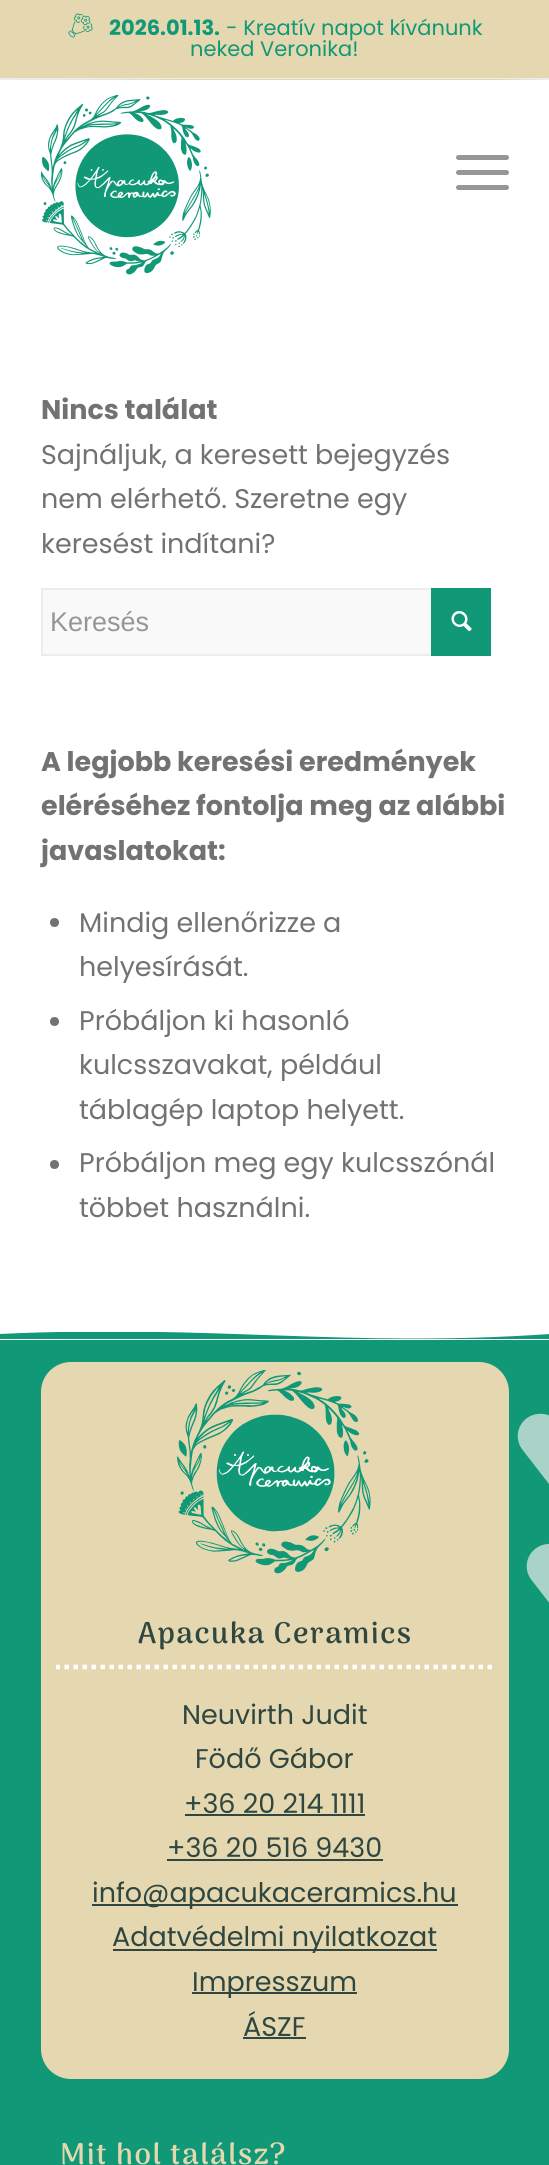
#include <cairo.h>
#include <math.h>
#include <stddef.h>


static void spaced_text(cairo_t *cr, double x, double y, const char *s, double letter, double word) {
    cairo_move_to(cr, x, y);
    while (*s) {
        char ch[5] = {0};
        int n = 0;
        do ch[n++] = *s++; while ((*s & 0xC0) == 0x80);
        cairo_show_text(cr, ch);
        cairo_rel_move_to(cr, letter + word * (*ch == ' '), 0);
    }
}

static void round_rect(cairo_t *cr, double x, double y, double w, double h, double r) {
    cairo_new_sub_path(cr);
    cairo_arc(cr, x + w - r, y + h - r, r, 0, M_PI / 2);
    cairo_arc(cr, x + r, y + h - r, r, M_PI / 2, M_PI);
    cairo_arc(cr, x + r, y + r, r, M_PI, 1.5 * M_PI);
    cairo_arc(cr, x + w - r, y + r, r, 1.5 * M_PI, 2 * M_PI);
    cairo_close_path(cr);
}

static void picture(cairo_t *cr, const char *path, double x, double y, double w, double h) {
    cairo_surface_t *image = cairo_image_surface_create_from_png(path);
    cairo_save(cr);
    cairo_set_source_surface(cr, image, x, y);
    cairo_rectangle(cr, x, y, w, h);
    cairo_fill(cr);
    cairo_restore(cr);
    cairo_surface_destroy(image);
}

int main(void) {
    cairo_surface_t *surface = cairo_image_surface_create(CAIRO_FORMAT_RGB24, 549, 2165);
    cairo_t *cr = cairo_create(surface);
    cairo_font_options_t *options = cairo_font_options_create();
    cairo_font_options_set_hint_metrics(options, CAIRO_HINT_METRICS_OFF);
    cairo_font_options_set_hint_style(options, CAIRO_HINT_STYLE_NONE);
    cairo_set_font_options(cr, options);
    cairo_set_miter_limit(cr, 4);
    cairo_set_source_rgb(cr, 1, 1, 1);
    cairo_paint(cr);
    cairo_set_source_rgb(cr, 0.898, 0.847, 0.69);
    cairo_rectangle(cr, 0, 0, 549, 78);
    cairo_fill(cr);
    cairo_set_source_rgb(cr, 0.922, 0.922, 0.922);
    cairo_rectangle(cr, 0, 78, 549, 2);
    cairo_fill(cr);
    picture(cr, "img1.png", 68, 13, 25, 25);
    cairo_select_font_face(cr, "Poppins", CAIRO_FONT_SLANT_NORMAL, CAIRO_FONT_WEIGHT_BOLD);
    cairo_set_font_size(cr, 21);
    cairo_set_source_rgb(cr, 0.067, 0.596, 0.463);
    cairo_move_to(cr, 109, 35);
    cairo_show_text(cr, "2026.01.13.");
    cairo_select_font_face(cr, "Poppins", CAIRO_FONT_SLANT_NORMAL, CAIRO_FONT_WEIGHT_NORMAL);
    cairo_move_to(cr, 226, 35);
    cairo_show_text(cr, "- Kreatív napot kívánunk");
    cairo_move_to(cr, 190, 56);
    cairo_show_text(cr, "neked Veronika!");
    cairo_save(cr);
    cairo_rectangle(cr, 0, 78, 549, 2);
    cairo_clip(cr);
    cairo_set_source_rgb(cr, 0.898, 0.847, 0.69);
    cairo_new_path(cr);
    cairo_move_to(cr, 1, 79);
    cairo_curve_to(cr, 214, 79, 336, 84, 548, 79);
    cairo_close_path(cr);
    cairo_fill(cr);
    cairo_restore(cr);
    picture(cr, "img2.png", 41, 95, 170, 180);
    cairo_set_source_rgb(cr, 0.588, 0.588, 0.588);
    round_rect(cr, 456, 170, 53, 5, 2.5);
    cairo_fill(cr);
    round_rect(cr, 456, 155, 53, 5, 2.5);
    cairo_fill(cr);
    round_rect(cr, 456, 185, 53, 5, 2.5);
    cairo_fill(cr);
    cairo_select_font_face(cr, "Poppins", CAIRO_FONT_SLANT_NORMAL, CAIRO_FONT_WEIGHT_BOLD);
    cairo_set_font_size(cr, 27);
    cairo_set_source_rgb(cr, 0.447, 0.447, 0.447);
    cairo_move_to(cr, 41, 419);
    cairo_show_text(cr, "Nincs találat");
    cairo_select_font_face(cr, "Poppins", CAIRO_FONT_SLANT_NORMAL, CAIRO_FONT_WEIGHT_NORMAL);
    cairo_move_to(cr, 41, 464);
    cairo_show_text(cr, "Sajnáljuk, a keresett bejegyzés");
    cairo_move_to(cr, 41, 508);
    cairo_show_text(cr, "nem elérhető. Szeretne egy");
    cairo_move_to(cr, 41, 553);
    cairo_show_text(cr, "keresést indítani?");
    cairo_set_source_rgb(cr, 0.973, 0.973, 0.973);
    cairo_rectangle(cr, 43, 590, 388, 64);
    cairo_fill(cr);
    cairo_rectangle(cr, 42, 589, 448, 66);
    cairo_set_source_rgb(cr, 0.922, 0.922, 0.922);
    cairo_stroke(cr);
    cairo_select_font_face(cr, "Liberation Sans", CAIRO_FONT_SLANT_NORMAL, CAIRO_FONT_WEIGHT_NORMAL);
    cairo_set_source_rgb(cr, 0.588, 0.588, 0.588);
    cairo_move_to(cr, 50, 631);
    cairo_show_text(cr, "Keresés");
    cairo_set_source_rgb(cr, 0.067, 0.596, 0.463);
    cairo_rectangle(cr, 431, 588, 60, 68);
    cairo_fill(cr);
    picture(cr, "img3.png", 451, 611, 21, 21);
    cairo_select_font_face(cr, "Poppins", CAIRO_FONT_SLANT_NORMAL, CAIRO_FONT_WEIGHT_BOLD);
    cairo_set_source_rgb(cr, 0.447, 0.447, 0.447);
    cairo_move_to(cr, 41, 771);
    cairo_show_text(cr, "A legjobb keresési eredmények");
    cairo_move_to(cr, 41, 815);
    cairo_show_text(cr, "eléréséhez fontolja meg az alábbi");
    cairo_move_to(cr, 41, 860);
    cairo_show_text(cr, "javaslatokat:");
    cairo_new_path(cr);
    cairo_arc(cr, 54.5, 922.5, 4.5, 0, 2 * M_PI);
    cairo_fill(cr);
    cairo_select_font_face(cr, "Poppins", CAIRO_FONT_SLANT_NORMAL, CAIRO_FONT_WEIGHT_NORMAL);
    cairo_move_to(cr, 79, 932);
    cairo_show_text(cr, "Mindig ellenőrizze a");
    cairo_move_to(cr, 79, 976);
    cairo_show_text(cr, "helyesírását.");
    cairo_new_path(cr);
    cairo_arc(cr, 54.5, 1021.5, 4.5, 0, 2 * M_PI);
    cairo_fill(cr);
    cairo_move_to(cr, 79, 1030);
    cairo_show_text(cr, "Próbáljon ki hasonló");
    cairo_move_to(cr, 79, 1074);
    cairo_show_text(cr, "kulcsszavakat, például");
    cairo_move_to(cr, 79, 1119);
    cairo_show_text(cr, "táblagép laptop helyett.");
    cairo_new_path(cr);
    cairo_arc(cr, 54.5, 1164.5, 4.5, 0, 2 * M_PI);
    cairo_fill(cr);
    cairo_move_to(cr, 79, 1172);
    cairo_show_text(cr, "Próbáljon meg egy kulcsszónál");
    cairo_move_to(cr, 79, 1217);
    cairo_show_text(cr, "többet használni.");
    cairo_set_source_rgb(cr, 0.067, 0.596, 0.463);
    cairo_rectangle(cr, 0, 1340, 549, 825);
    cairo_fill(cr);
    cairo_save(cr);
    cairo_rectangle(cr, 0, 1332, 549, 8);
    cairo_clip(cr);
    cairo_set_source_rgb(cr, 0.067, 0.596, 0.467);
    cairo_new_path(cr);
    cairo_move_to(cr, -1, 1334);
    cairo_line_to(cr, -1, 1339);
    cairo_line_to(cr, 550, 1339);
    cairo_line_to(cr, 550, 1334);
    cairo_curve_to(cr, 347, 1348, 213, 1324, -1, 1334);
    cairo_close_path(cr);
    cairo_fill(cr);
    cairo_restore(cr);
    picture(cr, "img4.png", 517, 1413, 32, 190);
    cairo_set_source_rgb(cr, 0.898, 0.847, 0.69);
    round_rect(cr, 41, 1362, 468, 717, 30);
    cairo_fill(cr);
    picture(cr, "img5.png", 177, 1370, 194, 204);
    cairo_save(cr);
    cairo_rectangle(cr, 56, 1595, 438, 477);
    cairo_clip(cr);
    cairo_new_path(cr);
    cairo_move_to(cr, 55.5, 1667);
    cairo_line_to(cr, 493.5, 1667);
    cairo_set_source_rgb(cr, 1, 1, 1);
    cairo_set_line_width(cr, 4.5);
    cairo_set_dash(cr, (double[]){4.5, 4.5}, 2, 0);
    cairo_stroke(cr);
    cairo_restore(cr);
    cairo_select_font_face(cr, "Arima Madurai", CAIRO_FONT_SLANT_NORMAL, CAIRO_FONT_WEIGHT_BOLD);
    cairo_set_font_size(cr, 29.75);
    cairo_set_source_rgb(cr, 0.184, 0.278, 0.251);
    spaced_text(cr, 138, 1643, "Apacuka Ceramics", 1.5, 0);
    cairo_select_font_face(cr, "Poppins", CAIRO_FONT_SLANT_NORMAL, CAIRO_FONT_WEIGHT_NORMAL);
    cairo_set_font_size(cr, 27);
    cairo_move_to(cr, 182, 1724);
    cairo_show_text(cr, "Neuvirth Judit");
    cairo_move_to(cr, 195, 1768);
    cairo_show_text(cr, "Födő Gábor");
    cairo_move_to(cr, 184, 1813);
    cairo_show_text(cr, "+36 20 214 1111");
    cairo_rectangle(cr, 185, 1814, 180, 2);
    cairo_fill(cr);
    cairo_move_to(cr, 167, 1857);
    cairo_show_text(cr, "+36 20 516 9430");
    cairo_rectangle(cr, 167, 1859, 216, 2);
    cairo_fill(cr);
    cairo_rectangle(cr, 92, 1904, 366, 2);
    cairo_fill(cr);
    cairo_move_to(cr, 92, 1902);
    cairo_show_text(cr, "info@apacukaceramics.hu");
    cairo_rectangle(cr, 113, 1949, 324, 2);
    cairo_fill(cr);
    cairo_move_to(cr, 112, 1946);
    cairo_show_text(cr, "Adatvédelmi nyilatkozat");
    cairo_rectangle(cr, 192, 1992, 165, 2);
    cairo_fill(cr);
    cairo_move_to(cr, 192, 1991);
    cairo_show_text(cr, "Impresszum");
    cairo_move_to(cr, 243, 2036);
    cairo_show_text(cr, "ÁSZF");
    cairo_rectangle(cr, 243, 2037, 63, 2);
    cairo_fill(cr);
    cairo_select_font_face(cr, "Arima Madurai", CAIRO_FONT_SLANT_NORMAL, CAIRO_FONT_WEIGHT_BOLD);
    cairo_set_font_size(cr, 29.75);
    cairo_set_source_rgb(cr, 0.898, 0.847, 0.69);
    spaced_text(cr, 60, 2164, "Mit hol találsz?", 1.5, 0);
    cairo_surface_write_to_png(surface, "page.png");
    cairo_font_options_destroy(options);
    cairo_destroy(cr);
    cairo_surface_destroy(surface);
    return 0;
}
